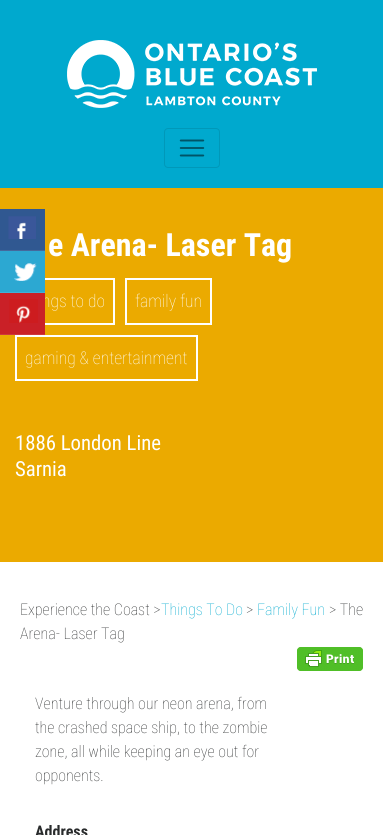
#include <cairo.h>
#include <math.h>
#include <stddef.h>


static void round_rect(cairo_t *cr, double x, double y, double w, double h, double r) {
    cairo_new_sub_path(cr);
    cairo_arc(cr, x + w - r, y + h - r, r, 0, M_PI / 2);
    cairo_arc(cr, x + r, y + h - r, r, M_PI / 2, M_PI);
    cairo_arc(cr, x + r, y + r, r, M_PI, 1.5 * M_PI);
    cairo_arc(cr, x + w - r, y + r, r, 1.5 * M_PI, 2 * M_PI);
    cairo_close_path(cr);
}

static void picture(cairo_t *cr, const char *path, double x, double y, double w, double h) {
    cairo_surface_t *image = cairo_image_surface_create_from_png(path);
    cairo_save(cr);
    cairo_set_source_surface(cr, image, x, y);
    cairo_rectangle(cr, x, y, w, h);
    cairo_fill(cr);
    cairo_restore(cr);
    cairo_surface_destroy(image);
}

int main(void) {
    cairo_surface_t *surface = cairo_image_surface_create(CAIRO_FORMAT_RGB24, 383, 835);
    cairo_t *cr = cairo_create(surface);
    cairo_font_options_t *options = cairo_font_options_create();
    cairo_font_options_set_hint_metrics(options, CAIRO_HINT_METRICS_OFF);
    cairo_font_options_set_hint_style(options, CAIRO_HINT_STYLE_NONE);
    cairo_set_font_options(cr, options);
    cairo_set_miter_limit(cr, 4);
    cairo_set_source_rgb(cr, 0, 0.663, 0.808);
    cairo_paint(cr);
    picture(cr, "img1.png", 67, 40, 250, 68);
    round_rect(cr, 164.5, 128.5, 55, 39, 3.5);
    cairo_set_source_rgb(cr, 0, 0.596, 0.725);
    cairo_set_line_width(cr, 1);
    cairo_stroke(cr);
    picture(cr, "img2.png", 179, 139, 26, 18);
    cairo_set_source_rgb(cr, 0.918, 0.667, 0);
    cairo_rectangle(cr, 0, 188, 383, 374);
    cairo_fill(cr);
    cairo_set_source_rgb(cr, 0.188, 0.345, 0.569);
    cairo_rectangle(cr, 0, 209, 45, 41);
    cairo_fill(cr);
    cairo_set_source_rgb(cr, 0.271, 0.412, 0.612);
    cairo_rectangle(cr, 0, 250, 45, 1);
    cairo_fill(cr);
    picture(cr, "img3.png", 8, 216, 28, 23);
    cairo_rectangle(cr, 16, 279, 98, 45);
    cairo_set_source_rgb(cr, 1, 1, 1);
    cairo_set_line_width(cr, 2);
    cairo_stroke(cr);
    cairo_set_source_rgb(cr, 0.173, 0.659, 0.824);
    cairo_rectangle(cr, 0, 251, 45, 41);
    cairo_fill(cr);
    cairo_set_source_rgb(cr, 0.255, 0.694, 0.843);
    cairo_rectangle(cr, 0, 292, 45, 1);
    cairo_fill(cr);
    picture(cr, "img4.png", 14, 263, 23, 18);
    cairo_select_font_face(cr, "Roboto Condensed Thin", CAIRO_FONT_SLANT_NORMAL, CAIRO_FONT_WEIGHT_NORMAL);
    cairo_set_font_size(cr, 17.5);
    cairo_set_source_rgb(cr, 1, 1, 1);
    cairo_move_to(cr, 42, 307);
    cairo_show_text(cr, "ngs to do");
    cairo_set_source_rgb(cr, 0.792, 0.125, 0.153);
    cairo_rectangle(cr, 0, 293, 45, 41);
    cairo_fill(cr);
    cairo_set_source_rgb(cr, 0.812, 0.212, 0.239);
    cairo_rectangle(cr, 0, 334, 45, 1);
    cairo_fill(cr);
    picture(cr, "img5.png", 9, 299, 29, 24);
    cairo_select_font_face(cr, "Roboto Condensed", CAIRO_FONT_SLANT_NORMAL, CAIRO_FONT_WEIGHT_BOLD);
    cairo_set_font_size(cr, 32);
    cairo_set_source_rgb(cr, 1, 1, 1);
    cairo_move_to(cr, 48, 256);
    cairo_show_text(cr, "e Arena- Laser Tag");
    cairo_rectangle(cr, 126, 279, 85, 45);
    cairo_stroke(cr);
    cairo_select_font_face(cr, "Roboto Condensed Thin", CAIRO_FONT_SLANT_NORMAL, CAIRO_FONT_WEIGHT_NORMAL);
    cairo_set_font_size(cr, 17.5);
    cairo_move_to(cr, 135, 307);
    cairo_show_text(cr, "family fun");
    cairo_rectangle(cr, 16, 336, 181, 44);
    cairo_stroke(cr);
    cairo_move_to(cr, 25, 364);
    cairo_show_text(cr, "gaming & entertainment");
    cairo_select_font_face(cr, "Roboto Condensed", CAIRO_FONT_SLANT_NORMAL, CAIRO_FONT_WEIGHT_NORMAL);
    cairo_set_font_size(cr, 20.75);
    cairo_move_to(cr, 15, 450);
    cairo_show_text(cr, "1886 London Line");
    cairo_move_to(cr, 15, 476);
    cairo_show_text(cr, "Sarnia");
    cairo_rectangle(cr, 0, 562, 383, 273);
    cairo_fill(cr);
    cairo_select_font_face(cr, "Roboto Condensed Thin", CAIRO_FONT_SLANT_NORMAL, CAIRO_FONT_WEIGHT_NORMAL);
    cairo_set_font_size(cr, 16);
    cairo_set_source_rgb(cr, 0.161, 0.169, 0.173);
    cairo_move_to(cr, 20, 615);
    cairo_show_text(cr, "Experience the Coast >");
    cairo_set_source_rgb(cr, 0, 0.663, 0.808);
    cairo_move_to(cr, 161, 615);
    cairo_show_text(cr, "Things To Do");
    cairo_set_source_rgb(cr, 0.161, 0.169, 0.173);
    cairo_move_to(cr, 246, 615);
    cairo_show_text(cr, ">");
    cairo_set_source_rgb(cr, 0, 0.663, 0.808);
    cairo_move_to(cr, 257, 615);
    cairo_show_text(cr, "Family Fun");
    cairo_set_source_rgb(cr, 0.161, 0.169, 0.173);
    cairo_move_to(cr, 329, 615);
    cairo_show_text(cr, "> The");
    cairo_move_to(cr, 20, 639);
    cairo_show_text(cr, "Arena- Laser Tag");
    picture(cr, "img6.png", 297, 647, 66, 24);
    cairo_move_to(cr, 35, 709);
    cairo_show_text(cr, "Venture through our neon arena, from");
    cairo_move_to(cr, 35, 733);
    cairo_show_text(cr, "the crashed space ship, to the zombie");
    cairo_move_to(cr, 35, 757);
    cairo_show_text(cr, "zone, all while keeping an eye out for");
    cairo_move_to(cr, 35, 781);
    cairo_show_text(cr, "opponents.");
    cairo_select_font_face(cr, "Roboto Condensed", CAIRO_FONT_SLANT_NORMAL, CAIRO_FONT_WEIGHT_BOLD);
    cairo_move_to(cr, 35, 837);
    cairo_show_text(cr, "Address");
    cairo_surface_write_to_png(surface, "page.png");
    cairo_font_options_destroy(options);
    cairo_destroy(cr);
    cairo_surface_destroy(surface);
    return 0;
}
